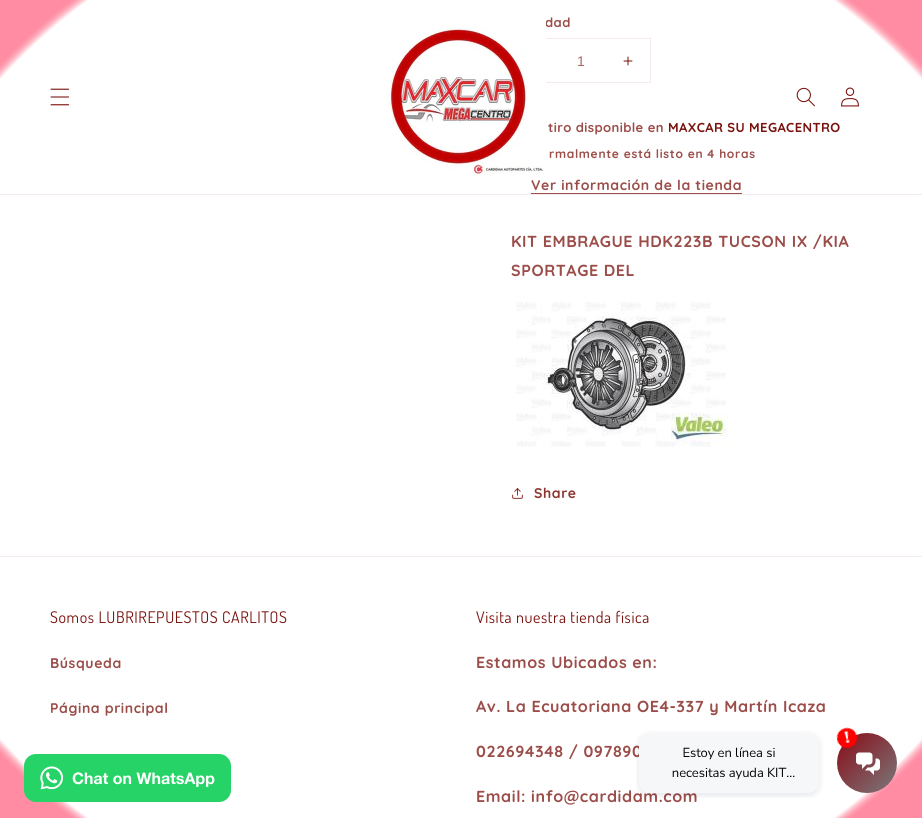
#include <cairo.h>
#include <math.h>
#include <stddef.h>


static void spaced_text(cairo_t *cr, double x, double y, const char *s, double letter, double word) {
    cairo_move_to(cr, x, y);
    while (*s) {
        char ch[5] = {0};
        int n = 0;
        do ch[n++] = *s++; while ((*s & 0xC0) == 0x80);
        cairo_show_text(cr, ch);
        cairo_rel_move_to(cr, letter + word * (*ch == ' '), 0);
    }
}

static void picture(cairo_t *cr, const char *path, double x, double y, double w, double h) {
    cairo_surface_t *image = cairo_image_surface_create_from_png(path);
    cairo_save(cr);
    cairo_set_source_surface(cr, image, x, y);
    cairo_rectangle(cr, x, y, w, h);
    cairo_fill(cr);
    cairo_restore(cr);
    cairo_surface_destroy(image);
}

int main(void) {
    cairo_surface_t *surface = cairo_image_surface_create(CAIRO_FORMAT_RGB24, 922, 818);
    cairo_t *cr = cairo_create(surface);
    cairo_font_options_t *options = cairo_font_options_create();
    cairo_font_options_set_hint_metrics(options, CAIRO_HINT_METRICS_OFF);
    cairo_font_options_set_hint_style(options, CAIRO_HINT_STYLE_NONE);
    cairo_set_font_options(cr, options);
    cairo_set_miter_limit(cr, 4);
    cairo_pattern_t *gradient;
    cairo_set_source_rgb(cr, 1, 1, 1);
    cairo_paint(cr);
    gradient = cairo_pattern_create_radial(0, 0, 0, 0, 0, 1);
    cairo_pattern_set_matrix(gradient, &(cairo_matrix_t){1.0 / 652, 0, 0, 1.0 / 578, -1.0 * 461 / 652, -1.0 * 409 / 578});
    cairo_pattern_add_color_stop_rgba(gradient, 0.36, 1, 1, 1, 1);
    cairo_pattern_add_color_stop_rgba(gradient, 0.91, 1, 1, 1, 1);
    cairo_pattern_add_color_stop_rgba(gradient, 0.93, 1, 0.549, 0.635, 1);
    cairo_set_source(cr, gradient);
    cairo_pattern_destroy(gradient);
    cairo_rectangle(cr, 0, 0, 922, 818);
    cairo_fill(cr);
    cairo_rectangle(cr, 511.5, 38.5, 139, 44);
    cairo_set_source_rgb(cr, 0.957, 0.925, 0.925);
    cairo_set_line_width(cr, 1);
    cairo_stroke(cr);
    picture(cr, "img5.png", 623, 56, 10, 10);
    gradient = cairo_pattern_create_radial(0, 0, 0, 0, 0, 1);
    cairo_pattern_set_matrix(gradient, &(cairo_matrix_t){1.0 / 652, 0, 0, 1.0 / 578, -1.0 * 461 / 652, -1.0 * 409 / 578});
    cairo_pattern_add_color_stop_rgba(gradient, 0.36, 0.941, 0.91, 0.91, 0);
    cairo_pattern_add_color_stop_rgba(gradient, 0.91, 1, 0.549, 0.635, 0);
    cairo_pattern_add_color_stop_rgba(gradient, 0.93, 1, 0.549, 0.635, 1);
    cairo_set_source(cr, gradient);
    cairo_pattern_destroy(gradient);
    cairo_rectangle(cr, 0, 0, 922, 79);
    cairo_fill(cr);
    cairo_set_source_rgb(cr, 0.957, 0.925, 0.925);
    cairo_rectangle(cr, 0, 194, 922, 1);
    cairo_fill(cr);
    picture(cr, "img1.png", 50, 88, 20, 18);
    cairo_select_font_face(cr, "Quicksand", CAIRO_FONT_SLANT_NORMAL, CAIRO_FONT_WEIGHT_BOLD);
    cairo_set_font_size(cr, 13);
    cairo_set_source_rgb(cr, 0.608, 0.302, 0.286);
    spaced_text(cr, 545, 27, "dad", 0.4, 0);
    picture(cr, "img2.png", 386, 18, 160, 159);
    picture(cr, "img3.png", 796, 87, 19, 20);
    picture(cr, "img4.png", 841, 87, 18, 20);
    cairo_select_font_face(cr, "Liberation Sans", CAIRO_FONT_SLANT_NORMAL, CAIRO_FONT_WEIGHT_NORMAL);
    cairo_set_font_size(cr, 14);
    cairo_set_source_rgb(cr, 0.667, 0.408, 0.392);
    cairo_move_to(cr, 577, 66);
    cairo_show_text(cr, "1");
    cairo_select_font_face(cr, "Quicksand", CAIRO_FONT_SLANT_NORMAL, CAIRO_FONT_WEIGHT_BOLD);
    cairo_set_font_size(cr, 13);
    cairo_set_source_rgb(cr, 0.608, 0.302, 0.286);
    spaced_text(cr, 548, 132, "tiro disponible en", 0.4, 0);
    cairo_set_source_rgb(cr, 0.475, 0.067, 0.047);
    spaced_text(cr, 668, 132, "MAXCAR SU MEGACENTRO", 0.4, 0);
    cairo_set_font_size(cr, 12);
    cairo_set_source_rgb(cr, 0.608, 0.302, 0.286);
    spaced_text(cr, 549, 158, "rmalmente está listo en 4 horas", 0.7, 0);
    cairo_set_font_size(cr, 14);
    spaced_text(cr, 531, 190, "Ver información de la tienda", 0.6, 0);
    cairo_rectangle(cr, 531, 193, 211, 1);
    cairo_fill(cr);
    cairo_set_font_size(cr, 16);
    spaced_text(cr, 511, 247, "KIT EMBRAGUE HDK223B TUCSON IX /KIA", 0.6, 0);
    spaced_text(cr, 511, 276, "SPORTAGE DEL", 0.6, 0);
    picture(cr, "img6.png", 516, 301, 214, 146);
    picture(cr, "img7.png", 512, 488, 11, 11);
    cairo_set_font_size(cr, 14);
    cairo_set_source_rgb(cr, 0.553, 0.208, 0.188);
    spaced_text(cr, 534, 498, "Share", 0.6, 0);
    gradient = cairo_pattern_create_radial(0, 0, 0, 0, 0, 1);
    cairo_pattern_set_matrix(gradient, &(cairo_matrix_t){1.0 / 652, 0, 0, 1.0 / 578, -1.0 * 461 / 652, -1.0 * 409 / 578});
    cairo_pattern_add_color_stop_rgba(gradient, 0.36, 0.941, 0.91, 0.91, 0);
    cairo_pattern_add_color_stop_rgba(gradient, 0.91, 1, 0.549, 0.635, 0);
    cairo_pattern_add_color_stop_rgba(gradient, 0.93, 1, 0.549, 0.635, 1);
    cairo_set_source(cr, gradient);
    cairo_pattern_destroy(gradient);
    cairo_rectangle(cr, 0, 739, 922, 79);
    cairo_fill(cr);
    cairo_set_source_rgb(cr, 0.957, 0.925, 0.925);
    cairo_rectangle(cr, 0, 556, 922, 1);
    cairo_fill(cr);
    cairo_select_font_face(cr, "Dosis", CAIRO_FONT_SLANT_NORMAL, CAIRO_FONT_WEIGHT_NORMAL);
    cairo_set_font_size(cr, 16);
    cairo_set_source_rgb(cr, 0.475, 0.067, 0.047);
    spaced_text(cr, 50, 623, "Somos LUBRIREPUESTOS CARLITOS", 0.6, 0);
    cairo_select_font_face(cr, "Quicksand", CAIRO_FONT_SLANT_NORMAL, CAIRO_FONT_WEIGHT_BOLD);
    cairo_set_font_size(cr, 14);
    cairo_set_source_rgb(cr, 0.608, 0.302, 0.286);
    spaced_text(cr, 50, 668, "Búsqueda", 0.6, 0);
    spaced_text(cr, 50, 713, "Página principal", 0.6, 0);
    cairo_select_font_face(cr, "Dosis", CAIRO_FONT_SLANT_NORMAL, CAIRO_FONT_WEIGHT_NORMAL);
    cairo_set_font_size(cr, 16);
    cairo_set_source_rgb(cr, 0.475, 0.067, 0.047);
    spaced_text(cr, 476, 623, "Visita nuestra tienda física", 0.6, 0);
    cairo_select_font_face(cr, "Quicksand", CAIRO_FONT_SLANT_NORMAL, CAIRO_FONT_WEIGHT_BOLD);
    cairo_set_source_rgb(cr, 0.608, 0.302, 0.286);
    spaced_text(cr, 476, 668, "Estamos Ubicados en:", 0.6, 0);
    spaced_text(cr, 476, 712, "Av. La Ecuatoriana OE4-337 y Martín Icaza", 0.6, 0);
    spaced_text(cr, 476, 757, "022694348 / 097890", 0.6, 0);
    spaced_text(cr, 476, 802, "Email: info@cardidam.com", 0.6, 0);
    picture(cr, "img8.png", 24, 754, 207, 48);
    picture(cr, "img9.png", 636, 727, 261, 71);
    cairo_surface_write_to_png(surface, "page.png");
    cairo_font_options_destroy(options);
    cairo_destroy(cr);
    cairo_surface_destroy(surface);
    return 0;
}
